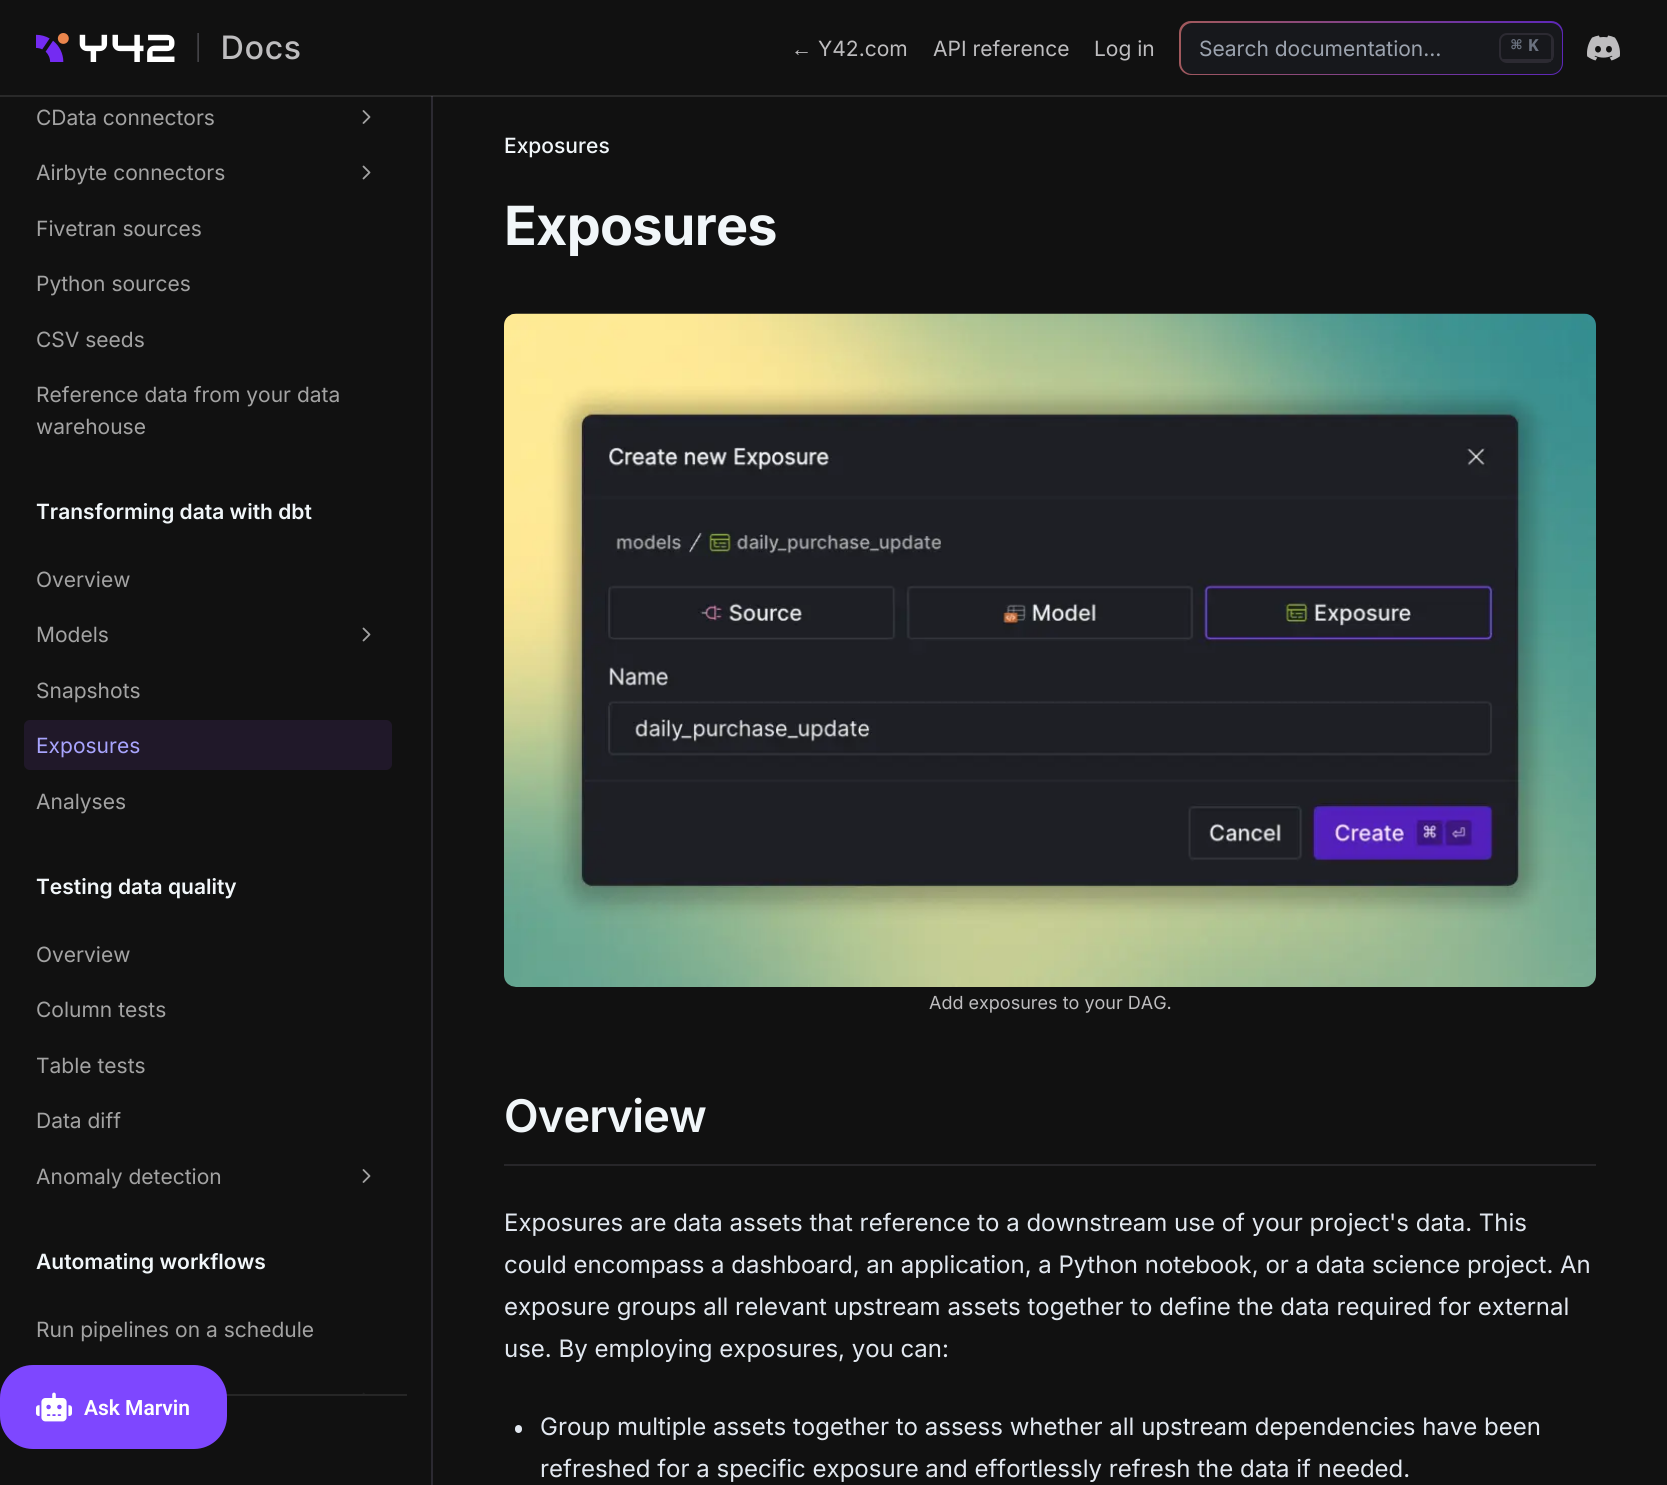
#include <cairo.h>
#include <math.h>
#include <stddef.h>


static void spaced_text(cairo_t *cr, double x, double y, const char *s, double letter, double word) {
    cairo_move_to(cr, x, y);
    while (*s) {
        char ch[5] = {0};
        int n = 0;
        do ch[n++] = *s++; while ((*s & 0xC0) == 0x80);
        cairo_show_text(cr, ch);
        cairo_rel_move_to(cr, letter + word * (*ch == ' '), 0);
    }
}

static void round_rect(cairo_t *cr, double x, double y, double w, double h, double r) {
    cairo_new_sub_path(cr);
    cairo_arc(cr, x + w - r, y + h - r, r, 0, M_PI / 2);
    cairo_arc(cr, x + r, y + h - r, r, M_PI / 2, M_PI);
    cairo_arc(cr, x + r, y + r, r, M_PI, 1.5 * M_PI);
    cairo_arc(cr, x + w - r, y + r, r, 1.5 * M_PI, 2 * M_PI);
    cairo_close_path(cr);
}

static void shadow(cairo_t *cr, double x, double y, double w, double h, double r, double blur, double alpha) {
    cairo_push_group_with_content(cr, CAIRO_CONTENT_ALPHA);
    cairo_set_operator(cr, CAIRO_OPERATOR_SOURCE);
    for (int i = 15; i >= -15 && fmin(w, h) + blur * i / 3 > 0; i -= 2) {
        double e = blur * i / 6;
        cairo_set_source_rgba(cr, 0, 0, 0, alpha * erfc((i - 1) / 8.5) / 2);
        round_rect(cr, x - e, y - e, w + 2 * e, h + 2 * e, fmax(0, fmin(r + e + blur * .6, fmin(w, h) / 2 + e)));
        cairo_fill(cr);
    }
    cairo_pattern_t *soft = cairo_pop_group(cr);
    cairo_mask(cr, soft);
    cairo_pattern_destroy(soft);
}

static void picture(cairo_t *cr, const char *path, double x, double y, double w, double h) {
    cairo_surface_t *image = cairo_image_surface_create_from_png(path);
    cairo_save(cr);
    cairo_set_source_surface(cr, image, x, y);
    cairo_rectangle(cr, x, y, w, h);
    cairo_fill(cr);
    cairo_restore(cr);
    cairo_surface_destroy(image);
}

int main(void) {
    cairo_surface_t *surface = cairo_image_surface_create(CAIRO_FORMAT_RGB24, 1667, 1485);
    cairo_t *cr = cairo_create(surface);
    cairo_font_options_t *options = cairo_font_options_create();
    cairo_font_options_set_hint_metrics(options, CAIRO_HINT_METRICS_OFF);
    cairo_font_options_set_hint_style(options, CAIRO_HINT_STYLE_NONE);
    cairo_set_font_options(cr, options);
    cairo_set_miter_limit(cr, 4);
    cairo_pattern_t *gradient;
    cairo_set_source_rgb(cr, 0.067, 0.067, 0.067);
    cairo_paint(cr);
    cairo_set_source_rgb(cr, 0.161, 0.161, 0.161);
    cairo_rectangle(cr, 0, 95, 1667, 2);
    cairo_fill(cr);
    picture(cr, "img1.png", 36, 33, 264, 29);
    cairo_select_font_face(cr, "Liberation Serif", CAIRO_FONT_SLANT_NORMAL, CAIRO_FONT_WEIGHT_NORMAL);
    cairo_set_font_size(cr, 21);
    cairo_set_source_rgb(cr, 0.745, 0.741, 0.749);
    cairo_move_to(cr, 791, 56);
    cairo_show_text(cr, "←");
    cairo_select_font_face(cr, "Inter", CAIRO_FONT_SLANT_NORMAL, CAIRO_FONT_WEIGHT_NORMAL);
    cairo_move_to(cr, 818, 56);
    cairo_show_text(cr, "Y42.com");
    cairo_move_to(cr, 933, 56);
    cairo_show_text(cr, "API reference");
    cairo_move_to(cr, 1094, 56);
    cairo_show_text(cr, "Log in");
    cairo_set_source_rgb(cr, 0.157, 0.157, 0.157);
    round_rect(cr, 1179, 21, 384, 54, 12);
    cairo_fill(cr);
    gradient = cairo_pattern_create_linear(1056, 6.4, 1563, 73);
    cairo_pattern_add_color_stop_rgba(gradient, 0, 0.91, 0.498, 0.267, 0.75);
    cairo_pattern_add_color_stop_rgba(gradient, 1, 0.431, 0.149, 0.925, 0.75);
    cairo_set_source(cr, gradient);
    cairo_pattern_destroy(gradient);
    round_rect(cr, 1179, 21, 384, 54, 12);
    cairo_fill(cr);
    cairo_set_source_rgb(cr, 0.09, 0.094, 0.11);
    round_rect(cr, 1181, 23, 381, 51, 11);
    cairo_fill(cr);
    cairo_set_source_rgb(cr, 0.612, 0.639, 0.686);
    cairo_move_to(cr, 1199, 56);
    cairo_show_text(cr, "Search documentation…");
    round_rect(cr, 1500, 34, 53, 28, 7);
    cairo_set_source_rgb(cr, 0.173, 0.165, 0.196);
    cairo_stroke(cr);
    cairo_rectangle(cr, 1551, 38, 2, 22);
    cairo_fill(cr);
    cairo_rectangle(cr, 1503, 59, 48, 3);
    cairo_fill(cr);
    cairo_select_font_face(cr, "DejaVu Sans Mono", CAIRO_FONT_SLANT_NORMAL, CAIRO_FONT_WEIGHT_BOLD);
    cairo_set_font_size(cr, 18);
    cairo_set_source_rgb(cr, 0.42, 0.447, 0.502);
    cairo_move_to(cr, 1511, 51);
    cairo_show_text(cr, "⌘");
    cairo_select_font_face(cr, "Liberation Mono", CAIRO_FONT_SLANT_NORMAL, CAIRO_FONT_WEIGHT_BOLD);
    cairo_move_to(cr, 1528, 51);
    cairo_show_text(cr, "K");
    picture(cr, "img2.png", 1587, 35, 33, 26);
    cairo_set_source_rgb(cr, 0.173, 0.165, 0.196);
    cairo_rectangle(cr, 431, 96, 2, 1389);
    cairo_fill(cr);
    cairo_set_source_rgb(cr, 0.255, 0.247, 0.278);
    cairo_rectangle(cr, 431, 96, 2, 1);
    cairo_fill(cr);
    cairo_select_font_face(cr, "Inter", CAIRO_FONT_SLANT_NORMAL, CAIRO_FONT_WEIGHT_NORMAL);
    cairo_set_font_size(cr, 21);
    cairo_set_source_rgb(cr, 0.639, 0.639, 0.639);
    cairo_move_to(cr, 36, 125);
    cairo_show_text(cr, "CData connectors");
    cairo_new_path(cr);
    cairo_move_to(cr, 363.5, 111);
    cairo_line_to(cr, 369.5, 117);
    cairo_line_to(cr, 363.5, 123);
    cairo_set_line_width(cr, 1.8);
    cairo_set_line_cap(cr, CAIRO_LINE_CAP_ROUND);
    cairo_set_line_join(cr, CAIRO_LINE_JOIN_ROUND);
    cairo_stroke(cr);
    cairo_move_to(cr, 36, 180);
    cairo_show_text(cr, "Airbyte connectors");
    cairo_new_path(cr);
    cairo_move_to(cr, 363.5, 166.5);
    cairo_line_to(cr, 369.5, 172.5);
    cairo_line_to(cr, 363.5, 178.5);
    cairo_stroke(cr);
    cairo_move_to(cr, 36, 236);
    cairo_show_text(cr, "Fivetran sources");
    cairo_move_to(cr, 36, 291);
    cairo_show_text(cr, "Python sources");
    cairo_move_to(cr, 36, 347);
    cairo_show_text(cr, "CSV seeds");
    cairo_move_to(cr, 36, 402);
    cairo_show_text(cr, "Reference data from your data");
    cairo_move_to(cr, 36, 434);
    cairo_show_text(cr, "warehouse");
    cairo_select_font_face(cr, "Inter SemiBold", CAIRO_FONT_SLANT_NORMAL, CAIRO_FONT_WEIGHT_NORMAL);
    cairo_set_source_rgb(cr, 0.945, 0.961, 0.976);
    cairo_move_to(cr, 36, 519);
    cairo_show_text(cr, "Transforming data with dbt");
    cairo_select_font_face(cr, "Inter", CAIRO_FONT_SLANT_NORMAL, CAIRO_FONT_WEIGHT_NORMAL);
    cairo_set_source_rgb(cr, 0.639, 0.639, 0.639);
    cairo_move_to(cr, 36, 587);
    cairo_show_text(cr, "Overview");
    cairo_move_to(cr, 36, 642);
    cairo_show_text(cr, "Models");
    cairo_new_path(cr);
    cairo_move_to(cr, 363.5, 628.5);
    cairo_line_to(cr, 369.5, 634.5);
    cairo_line_to(cr, 363.5, 640.5);
    cairo_stroke(cr);
    cairo_move_to(cr, 36, 698);
    cairo_show_text(cr, "Snapshots");
    cairo_set_source_rgb(cr, 0.125, 0.094, 0.161);
    round_rect(cr, 24, 720, 368, 50, 6);
    cairo_fill(cr);
    cairo_set_source_rgb(cr, 0.659, 0.643, 0.992);
    cairo_move_to(cr, 36, 753);
    cairo_show_text(cr, "Exposures");
    cairo_set_source_rgb(cr, 0.639, 0.639, 0.639);
    cairo_move_to(cr, 36, 809);
    cairo_show_text(cr, "Analyses");
    cairo_select_font_face(cr, "Inter SemiBold", CAIRO_FONT_SLANT_NORMAL, CAIRO_FONT_WEIGHT_NORMAL);
    cairo_set_source_rgb(cr, 0.945, 0.961, 0.976);
    cairo_move_to(cr, 36, 894);
    cairo_show_text(cr, "Testing data quality");
    cairo_select_font_face(cr, "Inter", CAIRO_FONT_SLANT_NORMAL, CAIRO_FONT_WEIGHT_NORMAL);
    cairo_set_source_rgb(cr, 0.639, 0.639, 0.639);
    cairo_move_to(cr, 36, 962);
    cairo_show_text(cr, "Overview");
    cairo_move_to(cr, 36, 1017);
    cairo_show_text(cr, "Column tests");
    cairo_move_to(cr, 36, 1073);
    cairo_show_text(cr, "Table tests");
    cairo_move_to(cr, 36, 1128);
    cairo_show_text(cr, "Data diff");
    cairo_move_to(cr, 36, 1184);
    cairo_show_text(cr, "Anomaly detection");
    cairo_new_path(cr);
    cairo_move_to(cr, 363.5, 1170);
    cairo_line_to(cr, 369.5, 1176);
    cairo_line_to(cr, 363.5, 1182);
    cairo_stroke(cr);
    cairo_select_font_face(cr, "Inter SemiBold", CAIRO_FONT_SLANT_NORMAL, CAIRO_FONT_WEIGHT_NORMAL);
    cairo_set_source_rgb(cr, 0.945, 0.961, 0.976);
    cairo_move_to(cr, 36, 1269);
    cairo_show_text(cr, "Automating workflows");
    cairo_select_font_face(cr, "Inter", CAIRO_FONT_SLANT_NORMAL, CAIRO_FONT_WEIGHT_NORMAL);
    cairo_set_source_rgb(cr, 0.639, 0.639, 0.639);
    cairo_move_to(cr, 36, 1337);
    cairo_show_text(cr, "Run pipelines on a schedule");
    cairo_save(cr);
    cairo_rectangle(cr, 24, 96, 368, 1299);
    cairo_clip(cr);
    cairo_new_path(cr);
    cairo_move_to(cr, 363.5, 1393.5);
    cairo_line_to(cr, 369.5, 1399.5);
    cairo_line_to(cr, 363.5, 1405.5);
    cairo_stroke(cr);
    cairo_restore(cr);
    cairo_save(cr);
    cairo_set_fill_rule(cr, CAIRO_FILL_RULE_EVEN_ODD);
    cairo_new_path(cr);
    cairo_move_to(cr, 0, 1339);
    cairo_line_to(cr, 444, 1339);
    cairo_line_to(cr, 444, 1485);
    cairo_line_to(cr, 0, 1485);
    cairo_close_path(cr);
    cairo_move_to(cr, 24, 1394);
    cairo_line_to(cr, 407, 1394);
    cairo_line_to(cr, 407, 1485);
    cairo_line_to(cr, 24, 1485);
    cairo_close_path(cr);
    cairo_clip(cr);
    cairo_set_source_rgb(cr, 0.067, 0.067, 0.067);
    shadow(cr, 24, 1376, 383, 91, 0, 12, 1);
    cairo_restore(cr);
    cairo_set_source_rgb(cr, 0.149, 0.149, 0.149);
    cairo_rectangle(cr, 226, 1394, 181, 2);
    cairo_fill(cr);
    cairo_select_font_face(cr, "Inter Medium", CAIRO_FONT_SLANT_NORMAL, CAIRO_FONT_WEIGHT_NORMAL);
    cairo_set_source_rgb(cr, 0.945, 0.961, 0.976);
    cairo_move_to(cr, 504, 153);
    cairo_show_text(cr, "Exposures");
    cairo_select_font_face(cr, "Inter", CAIRO_FONT_SLANT_NORMAL, CAIRO_FONT_WEIGHT_BOLD);
    cairo_set_font_size(cr, 54);
    spaced_text(cr, 504, 245, "Exposures", -0.75, 0);
    picture(cr, "img3.png", 504, 313, 1092, 674);
    cairo_select_font_face(cr, "Inter", CAIRO_FONT_SLANT_NORMAL, CAIRO_FONT_WEIGHT_NORMAL);
    cairo_set_font_size(cr, 18);
    cairo_set_source_rgb(cr, 0.745, 0.741, 0.749);
    cairo_move_to(cr, 929, 1009);
    cairo_show_text(cr, "Add exposures to your DAG.");
    cairo_set_source_rgb(cr, 0.153, 0.149, 0.161);
    cairo_rectangle(cr, 504, 1164, 1092, 2);
    cairo_fill(cr);
    cairo_select_font_face(cr, "Inter SemiBold", CAIRO_FONT_SLANT_NORMAL, CAIRO_FONT_WEIGHT_NORMAL);
    cairo_set_font_size(cr, 45);
    cairo_set_source_rgb(cr, 0.945, 0.961, 0.976);
    spaced_text(cr, 504, 1132, "Overview", -0.75, 0);
    cairo_select_font_face(cr, "Inter", CAIRO_FONT_SLANT_NORMAL, CAIRO_FONT_WEIGHT_NORMAL);
    cairo_set_font_size(cr, 24);
    cairo_set_source_rgb(cr, 0.886, 0.91, 0.941);
    cairo_move_to(cr, 504, 1231);
    cairo_show_text(cr, "Exposures are data assets that reference to a downstream use of your project's data. This");
    cairo_move_to(cr, 504, 1273);
    cairo_show_text(cr, "could encompass a dashboard, an application, a Python notebook, or a data science project. An");
    cairo_move_to(cr, 504, 1315);
    cairo_show_text(cr, "exposure groups all relevant upstream assets together to define the data required for external");
    cairo_move_to(cr, 504, 1357);
    cairo_show_text(cr, "use. By employing exposures, you can:");
    round_rect(cr, 515, 1425, 7, 8, 3.5);
    cairo_fill(cr);
    cairo_move_to(cr, 540, 1435);
    cairo_show_text(cr, "Group multiple assets together to assess whether all upstream dependencies have been");
    cairo_move_to(cr, 540, 1477);
    cairo_show_text(cr, "refreshed for a specific exposure and effortlessly refresh the data if needed.");
    cairo_set_source_rgb(cr, 0.494, 0.278, 1);
    round_rect(cr, 0, 1365, 227, 84, 33);
    cairo_fill(cr);
    picture(cr, "img4.png", 36, 1392, 36, 30);
    cairo_select_font_face(cr, "Roboto SemiBold", CAIRO_FONT_SLANT_NORMAL, CAIRO_FONT_WEIGHT_NORMAL);
    cairo_set_font_size(cr, 21);
    cairo_set_source_rgb(cr, 1, 1, 1);
    cairo_move_to(cr, 84, 1415);
    cairo_show_text(cr, "Ask Marvin");
    cairo_surface_write_to_png(surface, "page.png");
    cairo_font_options_destroy(options);
    cairo_destroy(cr);
    cairo_surface_destroy(surface);
    return 0;
}
